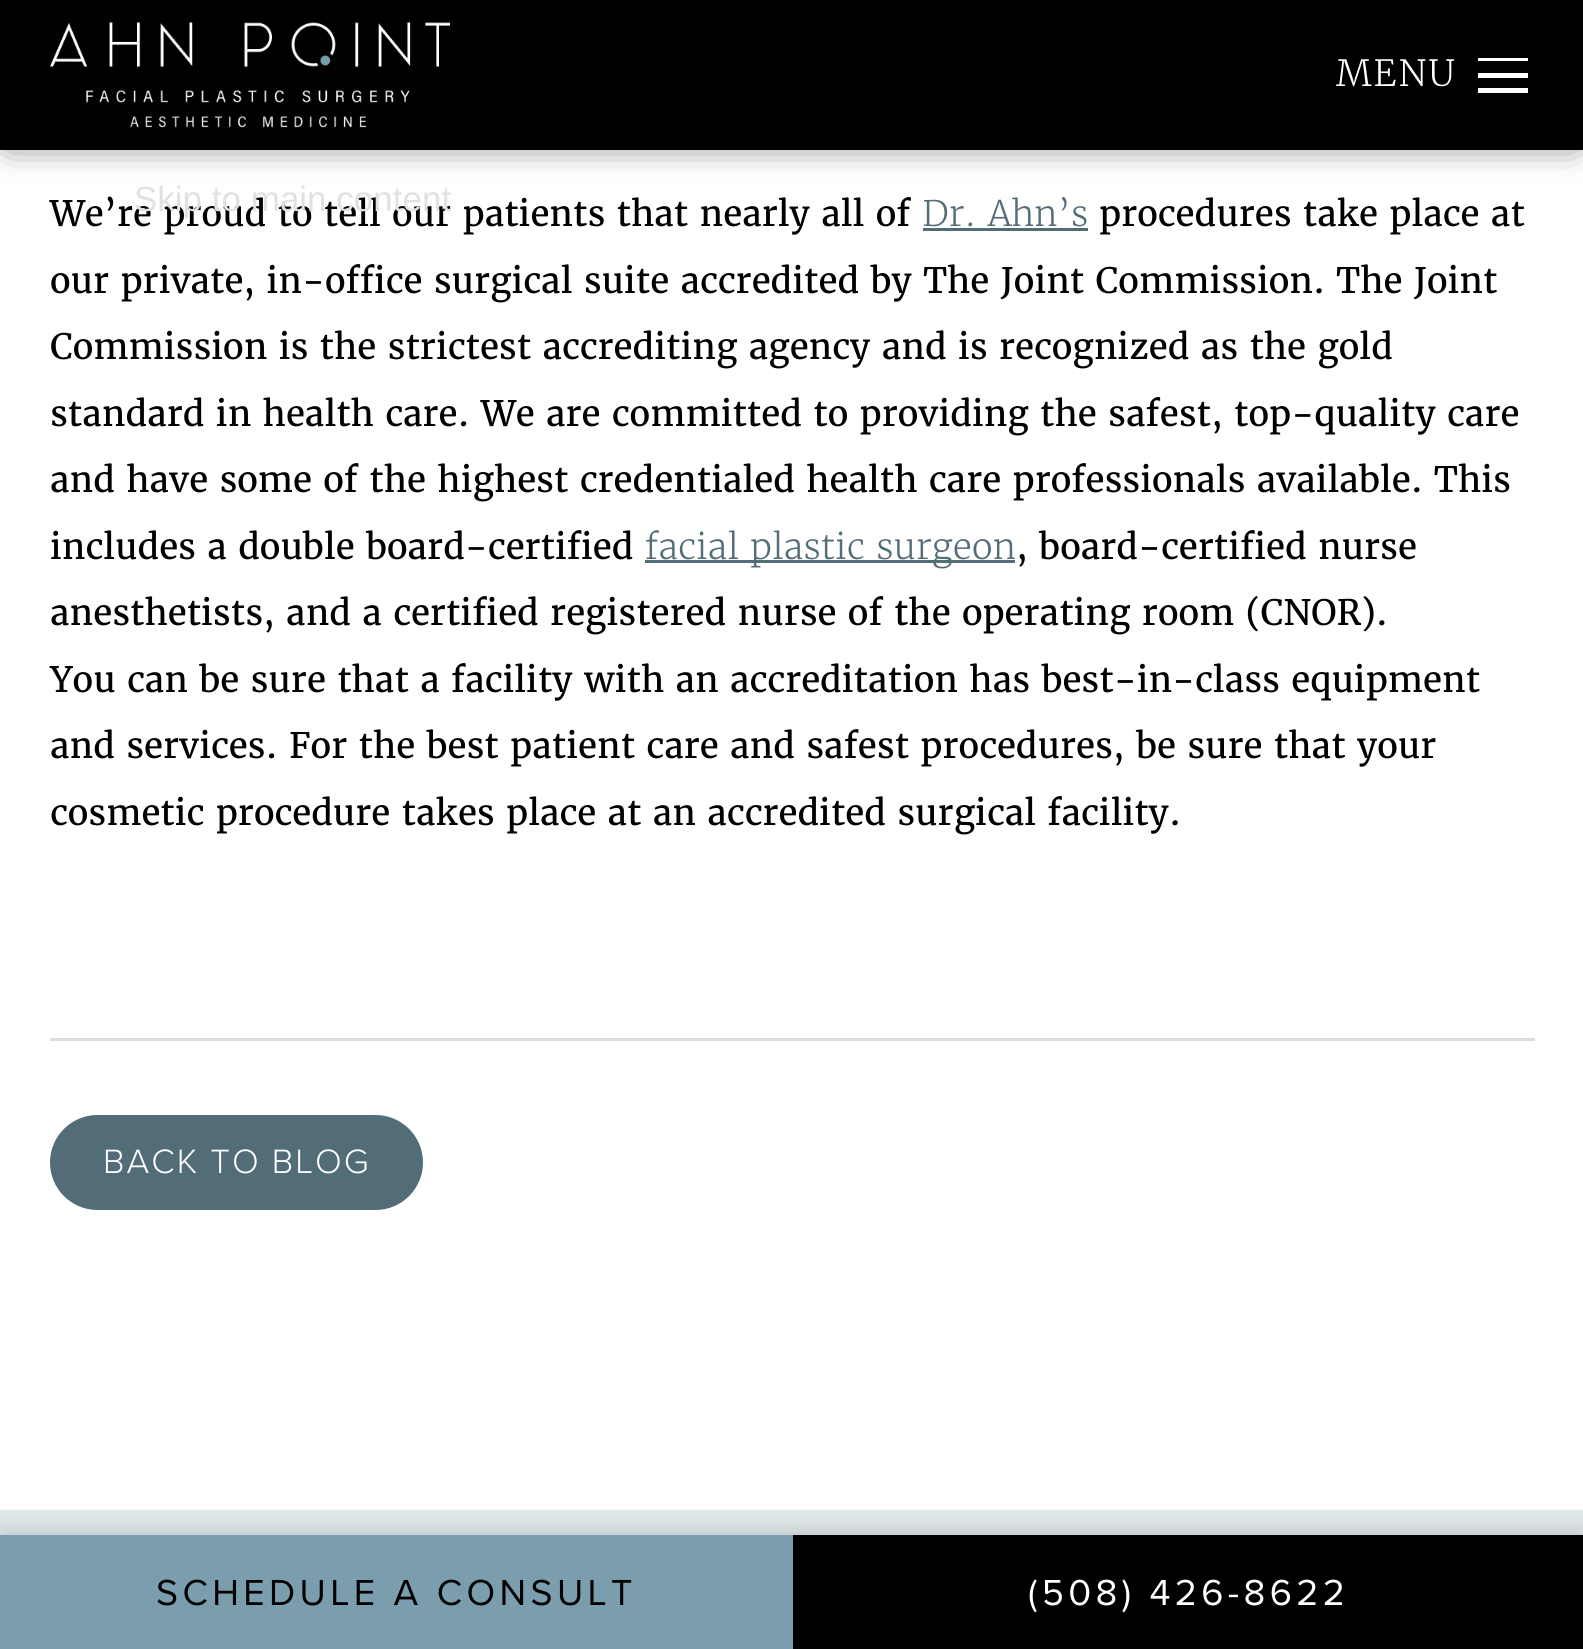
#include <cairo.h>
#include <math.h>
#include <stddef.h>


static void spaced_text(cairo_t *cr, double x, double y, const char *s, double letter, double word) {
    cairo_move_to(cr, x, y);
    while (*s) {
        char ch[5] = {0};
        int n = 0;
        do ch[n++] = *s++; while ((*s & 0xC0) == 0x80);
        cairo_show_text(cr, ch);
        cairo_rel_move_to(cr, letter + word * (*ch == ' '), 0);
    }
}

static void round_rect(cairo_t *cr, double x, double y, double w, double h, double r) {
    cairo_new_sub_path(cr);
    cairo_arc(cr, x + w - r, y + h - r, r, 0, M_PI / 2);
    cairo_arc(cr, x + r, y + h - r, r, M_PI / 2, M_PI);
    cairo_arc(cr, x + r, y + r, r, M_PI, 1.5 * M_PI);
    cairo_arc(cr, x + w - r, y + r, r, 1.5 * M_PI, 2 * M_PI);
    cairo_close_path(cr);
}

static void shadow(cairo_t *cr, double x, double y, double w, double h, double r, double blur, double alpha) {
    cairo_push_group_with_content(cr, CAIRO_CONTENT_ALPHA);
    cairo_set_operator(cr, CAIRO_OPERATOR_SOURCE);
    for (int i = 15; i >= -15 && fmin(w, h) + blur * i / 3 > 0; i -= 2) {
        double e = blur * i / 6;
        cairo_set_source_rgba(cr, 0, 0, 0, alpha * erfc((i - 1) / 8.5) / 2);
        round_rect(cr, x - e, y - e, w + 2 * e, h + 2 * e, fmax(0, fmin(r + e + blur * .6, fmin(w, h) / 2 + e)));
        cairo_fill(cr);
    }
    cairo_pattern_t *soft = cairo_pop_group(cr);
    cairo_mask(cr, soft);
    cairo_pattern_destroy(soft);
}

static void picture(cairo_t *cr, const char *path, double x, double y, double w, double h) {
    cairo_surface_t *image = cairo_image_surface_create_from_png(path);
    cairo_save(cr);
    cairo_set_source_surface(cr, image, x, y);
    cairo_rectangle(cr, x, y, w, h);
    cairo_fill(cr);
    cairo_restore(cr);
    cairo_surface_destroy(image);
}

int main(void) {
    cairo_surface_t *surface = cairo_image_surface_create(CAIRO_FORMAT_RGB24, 1583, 1649);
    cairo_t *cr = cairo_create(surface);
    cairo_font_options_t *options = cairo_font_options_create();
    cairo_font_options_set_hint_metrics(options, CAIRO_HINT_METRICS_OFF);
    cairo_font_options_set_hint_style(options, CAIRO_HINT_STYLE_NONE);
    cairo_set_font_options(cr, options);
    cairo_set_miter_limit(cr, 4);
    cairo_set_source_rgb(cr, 1, 1, 1);
    cairo_paint(cr);
    cairo_set_source_rgb(cr, 0.078, 0.078, 0.078);
    shadow(cr, 10, 10, 1565, 130, 0, 19, 0.4);
    cairo_set_source_rgb(cr, 0, 0, 0);
    cairo_rectangle(cr, 0, 0, 1583, 150);
    cairo_fill(cr);
    cairo_save(cr);
    cairo_rectangle(cr, 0, 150, 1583, 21);
    cairo_clip(cr);
    cairo_set_source_rgb(cr, 0.078, 0.078, 0.078);
    shadow(cr, 10, 10, 1565, 130, 0, 19, 0.4);
    cairo_restore(cr);
    picture(cr, "img1.png", 50, 22, 400, 106);
    cairo_set_source_rgb(cr, 1, 1, 1);
    cairo_rectangle(cr, 1478, 73, 50, 5);
    cairo_fill(cr);
    cairo_select_font_face(cr, "Merriweather Light", CAIRO_FONT_SLANT_NORMAL, CAIRO_FONT_WEIGHT_NORMAL);
    cairo_set_font_size(cr, 36);
    spaced_text(cr, 1336, 86, "MENU", 1.5, 0);
    cairo_rectangle(cr, 1478, 58, 50, 3);
    cairo_fill(cr);
    cairo_rectangle(cr, 1478, 88, 50, 5);
    cairo_fill(cr);
    cairo_select_font_face(cr, "Merriweather", CAIRO_FONT_SLANT_NORMAL, CAIRO_FONT_WEIGHT_NORMAL);
    cairo_set_font_size(cr, 35);
    cairo_set_source_rgb(cr, 0, 0, 0);
    cairo_move_to(cr, 50, 226);
    cairo_show_text(cr, "We’re proud to tell our patients that nearly all of");
    cairo_select_font_face(cr, "Liberation Sans", CAIRO_FONT_SLANT_NORMAL, CAIRO_FONT_WEIGHT_NORMAL);
    cairo_set_source_rgb(cr, 0.882, 0.882, 0.882);
    cairo_move_to(cr, 134, 211);
    cairo_show_text(cr, "Skip to main content");
    cairo_select_font_face(cr, "Merriweather Light", CAIRO_FONT_SLANT_NORMAL, CAIRO_FONT_WEIGHT_NORMAL);
    cairo_set_source_rgb(cr, 0.322, 0.424, 0.471);
    cairo_move_to(cr, 922, 226);
    cairo_show_text(cr, "Dr. Ahn’s");
    cairo_rectangle(cr, 923, 228, 165, 3);
    cairo_fill(cr);
    cairo_select_font_face(cr, "Merriweather", CAIRO_FONT_SLANT_NORMAL, CAIRO_FONT_WEIGHT_NORMAL);
    cairo_set_source_rgb(cr, 0, 0, 0);
    cairo_move_to(cr, 1099, 226);
    cairo_show_text(cr, "procedures take place at");
    cairo_move_to(cr, 50, 293);
    cairo_show_text(cr, "our private, in-office surgical suite accredited by The Joint Commission. The Joint");
    cairo_move_to(cr, 50, 359);
    cairo_show_text(cr, "Commission is the strictest accrediting agency and is recognized as the gold");
    cairo_move_to(cr, 50, 426);
    cairo_show_text(cr, "standard in health care. We are committed to providing the safest, top-quality care");
    cairo_move_to(cr, 50, 492);
    cairo_show_text(cr, "and have some of the highest credentialed health care professionals available. This");
    cairo_move_to(cr, 50, 559);
    cairo_show_text(cr, "includes a double board-certified");
    cairo_set_source_rgb(cr, 0.322, 0.424, 0.471);
    cairo_rectangle(cr, 645, 560, 370, 3);
    cairo_fill(cr);
    cairo_select_font_face(cr, "Merriweather Light", CAIRO_FONT_SLANT_NORMAL, CAIRO_FONT_WEIGHT_NORMAL);
    cairo_move_to(cr, 645, 559);
    cairo_show_text(cr, "facial plastic surgeon");
    cairo_select_font_face(cr, "Merriweather", CAIRO_FONT_SLANT_NORMAL, CAIRO_FONT_WEIGHT_NORMAL);
    cairo_set_source_rgb(cr, 0, 0, 0);
    cairo_move_to(cr, 1016, 559);
    cairo_show_text(cr, ", board-certified nurse");
    cairo_move_to(cr, 50, 625);
    cairo_show_text(cr, "anesthetists, and a certified registered nurse of the operating room (CNOR).");
    cairo_move_to(cr, 50, 692);
    cairo_show_text(cr, "You can be sure that a facility with an accreditation has best-in-class equipment");
    cairo_move_to(cr, 50, 758);
    cairo_show_text(cr, "and services. For the best patient care and safest procedures, be sure that your");
    cairo_move_to(cr, 50, 825);
    cairo_show_text(cr, "cosmetic procedure takes place at an accredited surgical facility.");
    cairo_set_source_rgb(cr, 0.867, 0.867, 0.867);
    cairo_rectangle(cr, 50, 1038, 1485, 3);
    cairo_fill(cr);
    cairo_set_source_rgb(cr, 0.322, 0.424, 0.471);
    round_rect(cr, 51.5, 1116.5, 370, 92, 46);
    cairo_fill_preserve(cr);
    cairo_set_line_width(cr, 3);
    cairo_stroke(cr);
    cairo_select_font_face(cr, "Proxima Nova Light", CAIRO_FONT_SLANT_NORMAL, CAIRO_FONT_WEIGHT_NORMAL);
    cairo_set_source_rgb(cr, 1, 1, 1);
    spaced_text(cr, 103, 1173, "BACK TO BLOG", 2, 0);
    cairo_set_source_rgb(cr, 0.894, 0.925, 0.937);
    cairo_rectangle(cr, 0, 1510, 1583, 25);
    cairo_fill(cr);
    cairo_set_source_rgb(cr, 0.078, 0.078, 0.078);
    shadow(cr, 0, 1535, 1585, 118, 0, 15, 0.25);
    cairo_set_source_rgb(cr, 0.478, 0.62, 0.682);
    cairo_rectangle(cr, 0, 1535, 793, 114);
    cairo_fill(cr);
    cairo_select_font_face(cr, "Proxima Nova", CAIRO_FONT_SLANT_NORMAL, CAIRO_FONT_WEIGHT_NORMAL);
    cairo_set_font_size(cr, 37.5);
    cairo_set_source_rgb(cr, 0, 0, 0);
    spaced_text(cr, 156, 1605, "SCHEDULE A CONSULT", 4.4, 0);
    cairo_rectangle(cr, 793, 1535, 790, 114);
    cairo_fill(cr);
    cairo_set_source_rgb(cr, 1, 1, 1);
    spaced_text(cr, 1028, 1605, "(508) 426-8622", 4.4, 0);
    cairo_surface_write_to_png(surface, "page.png");
    cairo_font_options_destroy(options);
    cairo_destroy(cr);
    cairo_surface_destroy(surface);
    return 0;
}
